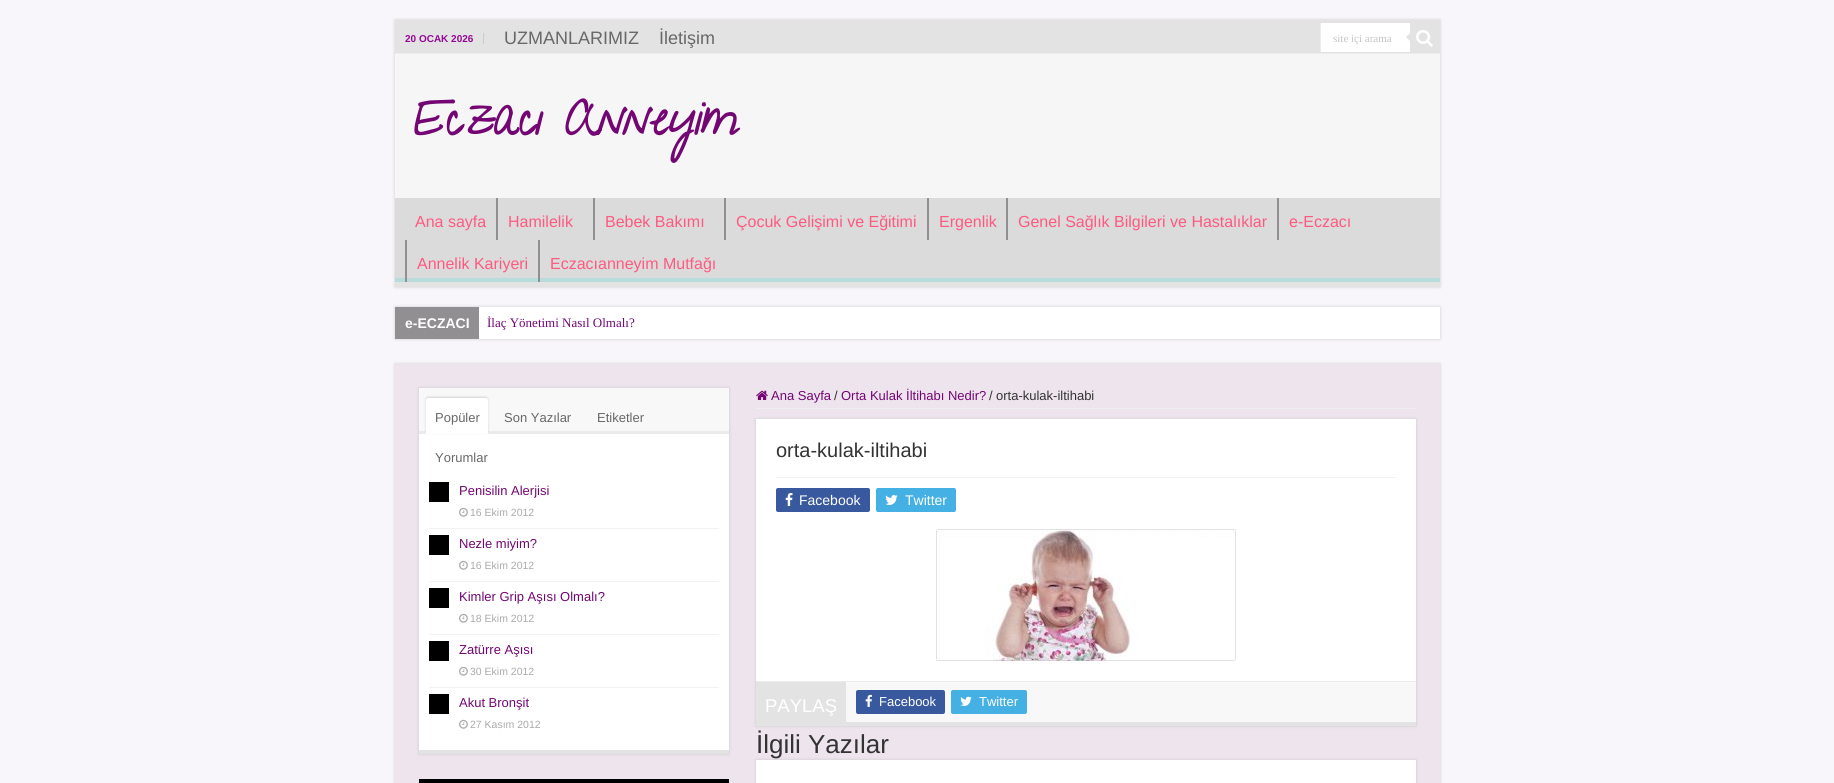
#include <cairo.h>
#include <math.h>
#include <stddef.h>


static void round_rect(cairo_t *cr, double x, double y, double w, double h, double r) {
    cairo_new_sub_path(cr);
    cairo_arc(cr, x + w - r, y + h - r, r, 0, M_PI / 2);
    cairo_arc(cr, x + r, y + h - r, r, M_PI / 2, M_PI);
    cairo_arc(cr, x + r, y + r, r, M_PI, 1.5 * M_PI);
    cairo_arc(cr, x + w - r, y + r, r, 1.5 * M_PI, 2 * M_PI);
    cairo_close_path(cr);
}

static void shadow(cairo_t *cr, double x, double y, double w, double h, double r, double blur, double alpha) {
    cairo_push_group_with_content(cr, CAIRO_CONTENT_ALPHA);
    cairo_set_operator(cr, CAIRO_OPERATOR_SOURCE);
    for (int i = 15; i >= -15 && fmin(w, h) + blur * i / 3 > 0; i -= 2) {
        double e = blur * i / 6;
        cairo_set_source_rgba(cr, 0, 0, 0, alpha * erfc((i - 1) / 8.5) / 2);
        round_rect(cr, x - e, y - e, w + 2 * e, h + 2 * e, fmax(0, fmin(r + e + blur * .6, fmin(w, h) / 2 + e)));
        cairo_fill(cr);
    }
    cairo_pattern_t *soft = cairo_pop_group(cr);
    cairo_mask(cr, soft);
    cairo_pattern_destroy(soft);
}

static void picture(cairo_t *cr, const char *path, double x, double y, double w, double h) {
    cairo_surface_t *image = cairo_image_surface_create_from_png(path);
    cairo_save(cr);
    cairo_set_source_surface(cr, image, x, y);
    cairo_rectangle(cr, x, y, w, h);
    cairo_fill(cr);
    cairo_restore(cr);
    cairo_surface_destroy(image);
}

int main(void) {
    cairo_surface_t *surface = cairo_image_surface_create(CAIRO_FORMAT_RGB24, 1834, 783);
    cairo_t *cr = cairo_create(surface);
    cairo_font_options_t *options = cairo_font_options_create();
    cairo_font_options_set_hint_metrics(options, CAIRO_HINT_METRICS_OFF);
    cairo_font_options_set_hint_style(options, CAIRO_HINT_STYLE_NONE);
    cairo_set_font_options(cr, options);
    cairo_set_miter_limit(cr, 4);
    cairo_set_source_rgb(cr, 0.969, 0.961, 0.98);
    cairo_paint(cr);
    cairo_set_source_rgb(cr, 0.792, 0.792, 0.792);
    shadow(cr, 395, 20, 1045, 267, 0, 1.5, 1);
    cairo_set_source_rgb(cr, 0.961, 0.961, 0.961);
    cairo_rectangle(cr, 395, 54, 1045, 144);
    cairo_fill(cr);
    cairo_set_source_rgb(cr, 0.89, 0.89, 0.89);
    cairo_rectangle(cr, 395, 20, 1045, 33);
    cairo_fill(cr);
    cairo_set_source_rgb(cr, 0.925, 0.925, 0.925);
    cairo_rectangle(cr, 395, 53, 1045, 1);
    cairo_fill(cr);
    cairo_set_source_rgb(cr, 0.8, 0.8, 0.8);
    cairo_rectangle(cr, 483, 33, 1, 11);
    cairo_fill(cr);
    cairo_select_font_face(cr, "Liberation Sans", CAIRO_FONT_SLANT_NORMAL, CAIRO_FONT_WEIGHT_BOLD);
    cairo_set_font_size(cr, 10);
    cairo_set_source_rgb(cr, 0.58, 0.035, 0.58);
    cairo_move_to(cr, 405, 42);
    cairo_show_text(cr, "20 OCAK 2026");
    cairo_select_font_face(cr, "Liberation Sans", CAIRO_FONT_SLANT_NORMAL, CAIRO_FONT_WEIGHT_NORMAL);
    cairo_set_font_size(cr, 18);
    cairo_set_source_rgb(cr, 0.412, 0.404, 0.408);
    cairo_move_to(cr, 504, 44);
    cairo_show_text(cr, "UZMANLARIMIZ");
    cairo_move_to(cr, 659, 44);
    cairo_show_text(cr, "İletişim");
    cairo_set_source_rgb(cr, 1, 1, 1);
    cairo_rectangle(cr, 1321, 23, 89, 29);
    cairo_fill(cr);
    cairo_set_source_rgb(cr, 0.925, 0.925, 0.925);
    cairo_rectangle(cr, 1320, 23, 1, 29);
    cairo_fill(cr);
    cairo_select_font_face(cr, "Liberation Serif", CAIRO_FONT_SLANT_NORMAL, CAIRO_FONT_WEIGHT_NORMAL);
    cairo_set_font_size(cr, 11);
    cairo_set_source_rgb(cr, 0.773, 0.773, 0.773);
    cairo_move_to(cr, 1333, 42);
    cairo_show_text(cr, "site içi arama");
    picture(cr, "img1.png", 1416, 30, 17, 17);
    cairo_set_source_rgb(cr, 0.89, 0.89, 0.89);
    cairo_new_path(cr);
    cairo_move_to(cr, 1410, 33);
    cairo_line_to(cr, 1410, 41);
    cairo_line_to(cr, 1406, 37);
    cairo_close_path(cr);
    cairo_fill(cr);
    cairo_select_font_face(cr, "Give You Glory", CAIRO_FONT_SLANT_ITALIC, CAIRO_FONT_WEIGHT_BOLD);
    cairo_set_font_size(cr, 46);
    cairo_set_source_rgb(cr, 0.451, 0.024, 0.451);
    cairo_move_to(cr, 410, 135);
    cairo_show_text(cr, "Eczacı Anneyim");
    cairo_set_source_rgb(cr, 0.859, 0.859, 0.859);
    cairo_rectangle(cr, 396, 198, 1043, 80);
    cairo_fill(cr);
    cairo_save(cr);
    cairo_rectangle(cr, 395, 198, 1045, 84);
    cairo_clip(cr);
    cairo_set_source_rgb(cr, 0.722, 0.859, 0.859);
    cairo_set_fill_rule(cr, CAIRO_FILL_RULE_EVEN_ODD);
    cairo_new_path(cr);
    cairo_move_to(cr, 296, 99);
    cairo_line_to(cr, 1539, 99);
    cairo_line_to(cr, 1539, 381);
    cairo_line_to(cr, 296, 381);
    cairo_close_path(cr);
    cairo_move_to(cr, 394, 192);
    cairo_line_to(cr, 1439, 192);
    cairo_curve_to(cr, 1440, 192, 1440, 192, 1440, 193);
    cairo_line_to(cr, 1440, 277);
    cairo_curve_to(cr, 1440, 278, 1440, 278, 1439, 278);
    cairo_line_to(cr, 394, 278);
    cairo_curve_to(cr, 393, 278, 393, 278, 393, 277);
    cairo_line_to(cr, 393, 193);
    cairo_curve_to(cr, 393, 192, 393, 192, 394, 192);
    cairo_close_path(cr);
    cairo_fill(cr);
    cairo_restore(cr);
    cairo_set_source_rgb(cr, 0.89, 0.89, 0.89);
    cairo_rectangle(cr, 395, 282, 1045, 5);
    cairo_fill(cr);
    cairo_select_font_face(cr, "Liberation Sans", CAIRO_FONT_SLANT_NORMAL, CAIRO_FONT_WEIGHT_NORMAL);
    cairo_set_font_size(cr, 16);
    cairo_set_source_rgb(cr, 1, 0.349, 0.502);
    cairo_move_to(cr, 415, 227);
    cairo_show_text(cr, "Ana sayfa");
    cairo_set_source_rgb(cr, 0.569, 0.561, 0.569);
    cairo_rectangle(cr, 496, 198, 2, 42);
    cairo_fill(cr);
    cairo_set_source_rgb(cr, 1, 0.349, 0.502);
    cairo_move_to(cr, 508, 227);
    cairo_show_text(cr, "Hamilelik");
    cairo_set_source_rgb(cr, 0.569, 0.561, 0.569);
    cairo_rectangle(cr, 593, 198, 2, 42);
    cairo_fill(cr);
    cairo_set_source_rgb(cr, 1, 0.349, 0.502);
    cairo_move_to(cr, 605, 227);
    cairo_show_text(cr, "Bebek Bakımı");
    cairo_set_source_rgb(cr, 0.569, 0.561, 0.569);
    cairo_rectangle(cr, 724, 198, 2, 42);
    cairo_fill(cr);
    cairo_set_source_rgb(cr, 1, 0.349, 0.502);
    cairo_move_to(cr, 736, 227);
    cairo_show_text(cr, "Çocuk Gelişimi ve Eğitimi");
    cairo_set_source_rgb(cr, 0.569, 0.561, 0.569);
    cairo_rectangle(cr, 927, 198, 2, 42);
    cairo_fill(cr);
    cairo_set_source_rgb(cr, 1, 0.349, 0.502);
    cairo_move_to(cr, 939, 227);
    cairo_show_text(cr, "Ergenlik");
    cairo_set_source_rgb(cr, 0.569, 0.561, 0.569);
    cairo_rectangle(cr, 1006, 198, 2, 42);
    cairo_fill(cr);
    cairo_set_source_rgb(cr, 1, 0.349, 0.502);
    cairo_move_to(cr, 1018, 227);
    cairo_show_text(cr, "Genel Sağlık Bilgileri ve Hastalıklar");
    cairo_set_source_rgb(cr, 0.569, 0.561, 0.569);
    cairo_rectangle(cr, 1277, 198, 2, 42);
    cairo_fill(cr);
    cairo_set_source_rgb(cr, 1, 0.349, 0.502);
    cairo_move_to(cr, 1289, 227);
    cairo_show_text(cr, "e-Eczacı");
    cairo_set_source_rgb(cr, 0.569, 0.561, 0.569);
    cairo_rectangle(cr, 405, 240, 2, 42);
    cairo_fill(cr);
    cairo_set_source_rgb(cr, 1, 0.349, 0.502);
    cairo_move_to(cr, 417, 269);
    cairo_show_text(cr, "Annelik Kariyeri");
    cairo_set_source_rgb(cr, 0.569, 0.561, 0.569);
    cairo_rectangle(cr, 538, 240, 2, 42);
    cairo_fill(cr);
    cairo_set_source_rgb(cr, 1, 0.349, 0.502);
    cairo_move_to(cr, 550, 269);
    cairo_show_text(cr, "Eczacıanneyim Mutfağı");
    cairo_set_source_rgb(cr, 0.792, 0.792, 0.792);
    shadow(cr, 395, 307, 1045, 32, 0, 1.5, 1);
    cairo_set_source_rgb(cr, 1, 1, 1);
    cairo_rectangle(cr, 479, 307, 961, 32);
    cairo_fill(cr);
    cairo_set_source_rgb(cr, 0.569, 0.561, 0.569);
    cairo_rectangle(cr, 395, 307, 84, 32);
    cairo_fill(cr);
    cairo_select_font_face(cr, "Liberation Sans", CAIRO_FONT_SLANT_NORMAL, CAIRO_FONT_WEIGHT_BOLD);
    cairo_set_font_size(cr, 14);
    cairo_set_source_rgb(cr, 1, 1, 1);
    cairo_move_to(cr, 405, 328);
    cairo_show_text(cr, "e-ECZACI");
    cairo_select_font_face(cr, "Liberation Serif", CAIRO_FONT_SLANT_NORMAL, CAIRO_FONT_WEIGHT_NORMAL);
    cairo_set_font_size(cr, 13);
    cairo_set_source_rgb(cr, 0.451, 0.024, 0.451);
    cairo_move_to(cr, 487, 327);
    cairo_show_text(cr, "İlaç Yönetimi Nasıl Olmalı?");
    cairo_set_source_rgb(cr, 0.792, 0.792, 0.792);
    shadow(cr, 395, 364, 1045, 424, 0, 1.5, 1);
    cairo_set_source_rgb(cr, 0.929, 0.894, 0.929);
    cairo_rectangle(cr, 395, 364, 1045, 419);
    cairo_fill(cr);
    cairo_set_source_rgb(cr, 0.792, 0.792, 0.792);
    shadow(cr, 419, 388, 310, 366, 0, 1.5, 1);
    cairo_set_source_rgb(cr, 1, 1, 1);
    cairo_rectangle(cr, 419, 434, 310, 316);
    cairo_fill(cr);
    cairo_set_source_rgb(cr, 0.89, 0.89, 0.89);
    cairo_rectangle(cr, 419, 750, 310, 4);
    cairo_fill(cr);
    cairo_set_source_rgb(cr, 0.969, 0.969, 0.969);
    cairo_rectangle(cr, 419, 388, 310, 43);
    cairo_fill(cr);
    cairo_set_source_rgb(cr, 0.918, 0.918, 0.918);
    cairo_rectangle(cr, 419, 431, 310, 3);
    cairo_fill(cr);
    cairo_set_source_rgb(cr, 0.831, 0.831, 0.831);
    shadow(cr, 426, 397, 62, 36, 2, 1, 1);
    cairo_set_source_rgb(cr, 1, 1, 1);
    cairo_new_path(cr);
    cairo_move_to(cr, 428, 398);
    cairo_line_to(cr, 486, 398);
    cairo_curve_to(cr, 487, 398, 488, 399, 488, 400);
    cairo_line_to(cr, 488, 434);
    cairo_line_to(cr, 426, 434);
    cairo_line_to(cr, 426, 400);
    cairo_curve_to(cr, 426, 399, 427, 398, 428, 398);
    cairo_close_path(cr);
    cairo_fill(cr);
    cairo_select_font_face(cr, "Liberation Sans", CAIRO_FONT_SLANT_NORMAL, CAIRO_FONT_WEIGHT_NORMAL);
    cairo_set_source_rgb(cr, 0.412, 0.404, 0.408);
    cairo_move_to(cr, 435, 422);
    cairo_show_text(cr, "Popüler");
    cairo_move_to(cr, 504, 422);
    cairo_show_text(cr, "Son Yazılar");
    cairo_move_to(cr, 597, 422);
    cairo_show_text(cr, "Etiketler");
    cairo_move_to(cr, 435, 462);
    cairo_show_text(cr, "Yorumlar");
    cairo_set_source_rgb(cr, 0.949, 0.949, 0.949);
    cairo_rectangle(cr, 429, 528, 290, 1);
    cairo_fill(cr);
    cairo_set_source_rgb(cr, 0, 0, 0);
    cairo_rectangle(cr, 429, 482, 20, 20);
    cairo_fill(cr);
    cairo_set_source_rgb(cr, 0.451, 0.024, 0.451);
    cairo_move_to(cr, 459, 495);
    cairo_show_text(cr, "Penisilin Alerjisi");
    picture(cr, "img2.png", 459, 507, 9, 10);
    cairo_set_font_size(cr, 10.5);
    cairo_set_source_rgb(cr, 0.667, 0.667, 0.667);
    cairo_move_to(cr, 470, 516);
    cairo_show_text(cr, "16 Ekim 2012");
    cairo_set_source_rgb(cr, 0.949, 0.949, 0.949);
    cairo_rectangle(cr, 429, 581, 290, 1);
    cairo_fill(cr);
    cairo_set_source_rgb(cr, 0, 0, 0);
    cairo_rectangle(cr, 429, 535, 20, 20);
    cairo_fill(cr);
    cairo_set_font_size(cr, 13);
    cairo_set_source_rgb(cr, 0.451, 0.024, 0.451);
    cairo_move_to(cr, 459, 548);
    cairo_show_text(cr, "Nezle miyim?");
    picture(cr, "img2.png", 459, 560, 9, 10);
    cairo_set_font_size(cr, 10.5);
    cairo_set_source_rgb(cr, 0.667, 0.667, 0.667);
    cairo_move_to(cr, 470, 569);
    cairo_show_text(cr, "16 Ekim 2012");
    cairo_set_source_rgb(cr, 0.949, 0.949, 0.949);
    cairo_rectangle(cr, 429, 634, 290, 1);
    cairo_fill(cr);
    cairo_set_source_rgb(cr, 0, 0, 0);
    cairo_rectangle(cr, 429, 588, 20, 20);
    cairo_fill(cr);
    cairo_set_font_size(cr, 13);
    cairo_set_source_rgb(cr, 0.451, 0.024, 0.451);
    cairo_move_to(cr, 459, 601);
    cairo_show_text(cr, "Kimler Grip Aşısı Olmalı?");
    picture(cr, "img2.png", 459, 613, 9, 10);
    cairo_set_font_size(cr, 10.5);
    cairo_set_source_rgb(cr, 0.667, 0.667, 0.667);
    cairo_move_to(cr, 470, 622);
    cairo_show_text(cr, "18 Ekim 2012");
    cairo_set_source_rgb(cr, 0.949, 0.949, 0.949);
    cairo_rectangle(cr, 429, 687, 290, 1);
    cairo_fill(cr);
    cairo_set_source_rgb(cr, 0, 0, 0);
    cairo_rectangle(cr, 429, 641, 20, 20);
    cairo_fill(cr);
    cairo_set_font_size(cr, 13);
    cairo_set_source_rgb(cr, 0.451, 0.024, 0.451);
    cairo_move_to(cr, 459, 654);
    cairo_show_text(cr, "Zatürre Aşısı");
    picture(cr, "img2.png", 459, 666, 9, 10);
    cairo_set_font_size(cr, 10.5);
    cairo_set_source_rgb(cr, 0.667, 0.667, 0.667);
    cairo_move_to(cr, 470, 675);
    cairo_show_text(cr, "30 Ekim 2012");
    cairo_set_source_rgb(cr, 0, 0, 0);
    cairo_rectangle(cr, 429, 694, 20, 20);
    cairo_fill(cr);
    cairo_set_font_size(cr, 13);
    cairo_set_source_rgb(cr, 0.451, 0.024, 0.451);
    cairo_move_to(cr, 459, 707);
    cairo_show_text(cr, "Akut Bronşit");
    picture(cr, "img2.png", 459, 719, 9, 10);
    cairo_set_font_size(cr, 10.5);
    cairo_set_source_rgb(cr, 0.667, 0.667, 0.667);
    cairo_move_to(cr, 470, 728);
    cairo_show_text(cr, "27 Kasım 2012");
    cairo_set_source_rgb(cr, 0, 0, 0);
    cairo_rectangle(cr, 419, 779, 310, 4);
    cairo_fill(cr);
    cairo_set_source_rgb(cr, 0.933, 0.933, 0.933);
    cairo_rectangle(cr, 756, 408, 660, 1);
    cairo_fill(cr);
    picture(cr, "img3.png", 756, 390, 12, 10);
    cairo_set_font_size(cr, 13);
    cairo_set_source_rgb(cr, 0.451, 0.024, 0.451);
    cairo_move_to(cr, 771, 400);
    cairo_show_text(cr, "Ana Sayfa");
    cairo_set_source_rgb(cr, 0.2, 0.2, 0.2);
    cairo_move_to(cr, 834, 400);
    cairo_show_text(cr, "/");
    cairo_set_source_rgb(cr, 0.451, 0.024, 0.451);
    cairo_move_to(cr, 841, 400);
    cairo_show_text(cr, "Orta Kulak İltihabı Nedir?");
    cairo_set_source_rgb(cr, 0.2, 0.2, 0.2);
    cairo_move_to(cr, 989, 400);
    cairo_show_text(cr, "/");
    cairo_move_to(cr, 996, 400);
    cairo_show_text(cr, "orta-kulak-iltihabi");
    cairo_set_source_rgb(cr, 0.792, 0.792, 0.792);
    shadow(cr, 756, 419, 660, 307, 0, 1.5, 1);
    cairo_set_source_rgb(cr, 1, 1, 1);
    cairo_rectangle(cr, 756, 419, 660, 262);
    cairo_fill(cr);
    cairo_set_source_rgb(cr, 0.89, 0.89, 0.89);
    cairo_rectangle(cr, 756, 722, 660, 4);
    cairo_fill(cr);
    cairo_set_font_size(cr, 20);
    cairo_set_source_rgb(cr, 0.2, 0.2, 0.2);
    cairo_move_to(cr, 776, 457);
    cairo_show_text(cr, "orta-kulak-iltihabi");
    cairo_set_source_rgb(cr, 0.949, 0.949, 0.949);
    cairo_rectangle(cr, 776, 477, 620, 1);
    cairo_fill(cr);
    cairo_set_source_rgb(cr, 0.224, 0.349, 0.624);
    round_rect(cr, 776, 488, 94, 24, 2);
    cairo_fill(cr);
    picture(cr, "img4.png", 785, 493, 8, 13);
    cairo_set_font_size(cr, 14);
    cairo_set_source_rgb(cr, 1, 1, 1);
    cairo_move_to(cr, 799, 505);
    cairo_show_text(cr, "Facebook");
    cairo_set_source_rgb(cr, 0.271, 0.69, 0.89);
    round_rect(cr, 876, 488, 80, 24, 2);
    cairo_fill(cr);
    picture(cr, "img5.png", 885, 495, 13, 10);
    cairo_set_source_rgb(cr, 1, 1, 1);
    cairo_move_to(cr, 905, 505);
    cairo_show_text(cr, "Twitter");
    picture(cr, "img6.png", 936, 529, 300, 132);
    cairo_set_source_rgb(cr, 0.969, 0.969, 0.969);
    cairo_rectangle(cr, 846, 682, 570, 40);
    cairo_fill(cr);
    cairo_set_source_rgb(cr, 0.918, 0.918, 0.918);
    cairo_rectangle(cr, 756, 681, 660, 1);
    cairo_fill(cr);
    cairo_set_source_rgb(cr, 0.89, 0.89, 0.89);
    cairo_rectangle(cr, 756, 682, 90, 40);
    cairo_fill(cr);
    cairo_set_font_size(cr, 18.5);
    cairo_set_source_rgb(cr, 1, 1, 1);
    cairo_move_to(cr, 765, 712);
    cairo_show_text(cr, "PAYLAŞ");
    cairo_set_source_rgb(cr, 0.224, 0.349, 0.624);
    round_rect(cr, 856, 690, 89, 24, 2);
    cairo_fill(cr);
    picture(cr, "img7.png", 865, 694, 7, 13);
    cairo_set_font_size(cr, 13);
    cairo_set_source_rgb(cr, 1, 1, 1);
    cairo_move_to(cr, 879, 706);
    cairo_show_text(cr, "Facebook");
    cairo_set_source_rgb(cr, 0.271, 0.69, 0.89);
    round_rect(cr, 951, 690, 76, 24, 2);
    cairo_fill(cr);
    picture(cr, "img8.png", 960, 696, 12, 10);
    cairo_set_source_rgb(cr, 1, 1, 1);
    cairo_move_to(cr, 979, 706);
    cairo_show_text(cr, "Twitter");
    cairo_set_source_rgb(cr, 0.792, 0.792, 0.792);
    shadow(cr, 756, 760, 660, 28, 0, 1.5, 1);
    cairo_set_font_size(cr, 26);
    cairo_set_source_rgb(cr, 0.2, 0.2, 0.2);
    cairo_move_to(cr, 756, 753);
    cairo_show_text(cr, "İlgili Yazılar");
    cairo_set_source_rgb(cr, 1, 1, 1);
    cairo_rectangle(cr, 756, 760, 660, 23);
    cairo_fill(cr);
    cairo_surface_write_to_png(surface, "page.png");
    cairo_font_options_destroy(options);
    cairo_destroy(cr);
    cairo_surface_destroy(surface);
    return 0;
}
